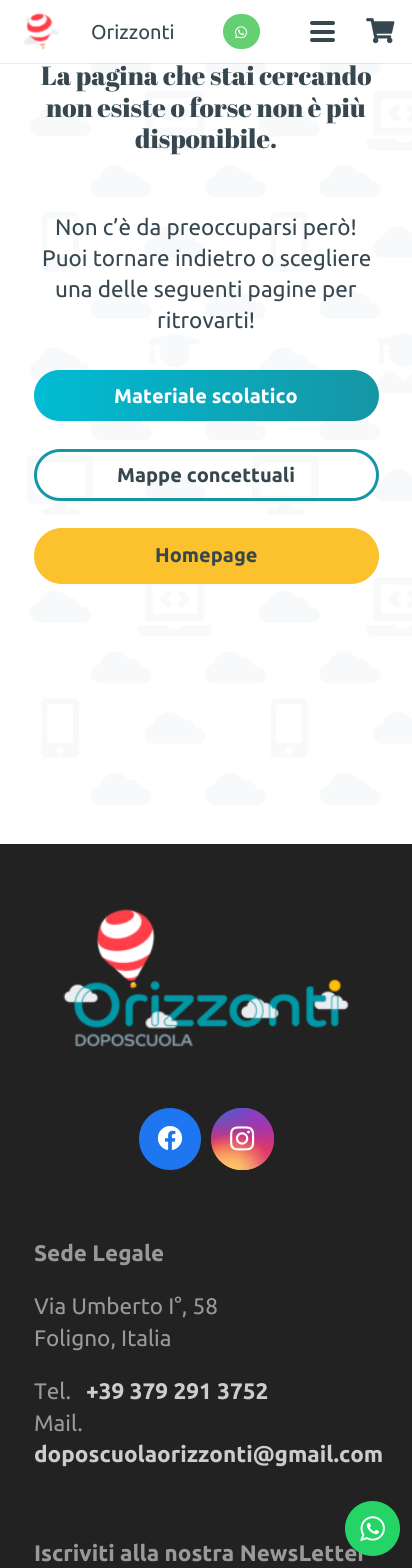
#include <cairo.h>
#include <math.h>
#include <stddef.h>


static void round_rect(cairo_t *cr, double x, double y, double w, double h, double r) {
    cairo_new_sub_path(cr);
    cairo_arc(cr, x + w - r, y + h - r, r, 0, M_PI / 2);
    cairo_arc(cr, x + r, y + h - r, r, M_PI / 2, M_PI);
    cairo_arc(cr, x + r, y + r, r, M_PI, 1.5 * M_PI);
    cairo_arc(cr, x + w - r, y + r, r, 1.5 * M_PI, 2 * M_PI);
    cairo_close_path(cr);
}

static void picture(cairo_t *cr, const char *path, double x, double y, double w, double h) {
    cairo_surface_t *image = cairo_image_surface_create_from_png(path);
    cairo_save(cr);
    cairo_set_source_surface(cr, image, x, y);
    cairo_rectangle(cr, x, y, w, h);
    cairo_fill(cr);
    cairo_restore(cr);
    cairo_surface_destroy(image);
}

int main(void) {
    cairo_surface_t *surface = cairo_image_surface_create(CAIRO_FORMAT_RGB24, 412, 1568);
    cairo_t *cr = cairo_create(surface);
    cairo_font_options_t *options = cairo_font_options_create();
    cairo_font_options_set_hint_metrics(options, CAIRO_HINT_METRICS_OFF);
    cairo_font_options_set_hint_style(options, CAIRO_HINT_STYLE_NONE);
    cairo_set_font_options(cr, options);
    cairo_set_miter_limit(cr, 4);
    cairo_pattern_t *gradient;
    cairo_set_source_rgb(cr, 1, 1, 1);
    cairo_paint(cr);
    picture(cr, "img4.png", 27, 63, 385, 742);
    cairo_set_source_rgba(cr, 0, 0, 0, 0.08);
    cairo_new_path(cr);
    cairo_move_to(cr, 0, 62);
    cairo_line_to(cr, 0, 64);
    cairo_line_to(cr, 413, 64);
    cairo_line_to(cr, 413, 1);
    cairo_line_to(cr, 412, 1);
    cairo_line_to(cr, 412, 62);
    cairo_close_path(cr);
    cairo_fill(cr);
    cairo_set_source_rgb(cr, 1, 1, 1);
    cairo_rectangle(cr, 0, 62, 412, 1);
    cairo_fill(cr);
    picture(cr, "img1.png", 23, 13, 36, 37);
    cairo_select_font_face(cr, "Ubuntu", CAIRO_FONT_SLANT_NORMAL, CAIRO_FONT_WEIGHT_NORMAL);
    cairo_set_font_size(cr, 20);
    cairo_set_source_rgb(cr, 0.216, 0.278, 0.31);
    cairo_move_to(cr, 91, 39);
    cairo_show_text(cr, "Orizzonti");
    cairo_set_source_rgb(cr, 0.396, 0.816, 0.443);
    round_rect(cr, 223, 14, 37, 35, 17.5);
    cairo_fill(cr);
    picture(cr, "img2.png", 235, 26, 12, 13);
    cairo_set_source_rgb(cr, 0.216, 0.278, 0.31);
    round_rect(cr, 310, 30, 25, 4, 2);
    cairo_fill(cr);
    round_rect(cr, 310, 21, 25, 4, 2);
    cairo_fill(cr);
    round_rect(cr, 310, 38, 25, 4, 2);
    cairo_fill(cr);
    picture(cr, "img3.png", 366, 18, 29, 26);
    cairo_select_font_face(cr, "Abril Fatface", CAIRO_FONT_SLANT_NORMAL, CAIRO_FONT_WEIGHT_NORMAL);
    cairo_set_font_size(cr, 26.25);
    cairo_move_to(cr, 41, 85);
    cairo_show_text(cr, "La pagina che stai cercando");
    cairo_move_to(cr, 46, 117);
    cairo_show_text(cr, "non esiste o forse non è più");
    cairo_move_to(cr, 135, 148);
    cairo_show_text(cr, "disponibile.");
    cairo_select_font_face(cr, "Ubuntu", CAIRO_FONT_SLANT_NORMAL, CAIRO_FONT_WEIGHT_NORMAL);
    cairo_set_font_size(cr, 22.5);
    cairo_move_to(cr, 55, 235);
    cairo_show_text(cr, "Non c’è da preoccuparsi però!");
    cairo_move_to(cr, 42, 266);
    cairo_show_text(cr, "Puoi tornare indietro o scegliere");
    cairo_move_to(cr, 55, 297);
    cairo_show_text(cr, "una delle seguenti pagine per");
    cairo_move_to(cr, 157, 328);
    cairo_show_text(cr, "ritrovarti!");
    gradient = cairo_pattern_create_linear(34, 396, 379, 396);
    cairo_pattern_add_color_stop_rgba(gradient, 0, 0, 0.737, 0.831, 1);
    cairo_pattern_add_color_stop_rgba(gradient, 1, 0.086, 0.588, 0.647, 1);
    cairo_set_source(cr, gradient);
    cairo_pattern_destroy(gradient);
    round_rect(cr, 34, 370, 345, 51, 25.5);
    cairo_fill(cr);
    cairo_select_font_face(cr, "Ubuntu", CAIRO_FONT_SLANT_NORMAL, CAIRO_FONT_WEIGHT_BOLD);
    cairo_set_font_size(cr, 20);
    cairo_set_source_rgb(cr, 1, 1, 1);
    cairo_move_to(cr, 114, 403);
    cairo_show_text(cr, "Materiale scolatico");
    round_rect(cr, 35.5, 450.5, 342, 49, 24.5);
    cairo_set_source_rgb(cr, 0.086, 0.588, 0.647);
    cairo_set_line_width(cr, 3);
    cairo_stroke(cr);
    cairo_set_source_rgb(cr, 0.216, 0.278, 0.31);
    cairo_move_to(cr, 117, 482);
    cairo_show_text(cr, "Mappe concettuali");
    cairo_set_source_rgb(cr, 0.988, 0.761, 0.176);
    round_rect(cr, 34, 528, 345, 56, 28);
    cairo_fill(cr);
    cairo_set_source_rgb(cr, 0.216, 0.278, 0.31);
    cairo_move_to(cr, 155, 562);
    cairo_show_text(cr, "Homepage");
    cairo_set_source_rgb(cr, 0.133, 0.133, 0.133);
    cairo_rectangle(cr, 0, 844, 412, 724);
    cairo_fill(cr);
    picture(cr, "img5.png", 63, 909, 286, 138);
    cairo_set_source_rgb(cr, 0.118, 0.467, 0.941);
    cairo_arc(cr, 170, 1139, 31, 0, 2 * M_PI);
    cairo_fill(cr);
    picture(cr, "img6.png", 157, 1126, 26, 24);
    gradient = cairo_pattern_create_linear(243, 1108, 243, 1170);
    cairo_pattern_add_color_stop_rgba(gradient, 0, 0.396, 0.349, 0.792, 1);
    cairo_pattern_add_color_stop_rgba(gradient, 0.3, 0.737, 0.192, 0.561, 1);
    cairo_pattern_add_color_stop_rgba(gradient, 0.5, 0.894, 0.18, 0.4, 1);
    cairo_pattern_add_color_stop_rgba(gradient, 0.7, 0.98, 0.325, 0.196, 1);
    cairo_pattern_add_color_stop_rgba(gradient, 1, 1, 0.863, 0.502, 1);
    cairo_set_source(cr, gradient);
    cairo_pattern_destroy(gradient);
    round_rect(cr, 211, 1108, 63, 62, 31);
    cairo_fill(cr);
    gradient = cairo_pattern_create_radial(274, 1170, 0, 274, 1170, 88);
    cairo_pattern_add_color_stop_rgba(gradient, 0, 0.851, 0.192, 0.478, 1);
    cairo_pattern_add_color_stop_rgba(gradient, 1, 0.851, 0.192, 0.478, 0);
    cairo_set_source(cr, gradient);
    cairo_pattern_destroy(gradient);
    round_rect(cr, 211, 1108, 63, 62, 31);
    cairo_fill(cr);
    gradient = cairo_pattern_create_radial(0, 0, 0, 0, 0, 1);
    cairo_pattern_set_matrix(gradient, &(cairo_matrix_t){1.0 / 53, 0, 0, 1.0 / 106, -1.0 * 249 / 53, -1.0 * 1095 / 106});
    cairo_pattern_add_color_stop_rgba(gradient, 0, 0.537, 0.239, 0.761, 1);
    cairo_pattern_add_color_stop_rgba(gradient, 0.5, 0.537, 0.239, 0.761, 0);
    cairo_set_source(cr, gradient);
    cairo_pattern_destroy(gradient);
    round_rect(cr, 211, 1108, 63, 62, 31);
    cairo_fill(cr);
    gradient = cairo_pattern_create_radial(274, 1108, 0, 274, 1108, 88);
    cairo_pattern_add_color_stop_rgba(gradient, 0, 0.537, 0.239, 0.761, 1);
    cairo_pattern_add_color_stop_rgba(gradient, 0.5, 0.537, 0.239, 0.761, 0);
    cairo_set_source(cr, gradient);
    cairo_pattern_destroy(gradient);
    round_rect(cr, 211, 1108, 63, 62, 31);
    cairo_fill(cr);
    gradient = cairo_pattern_create_radial(0, 0, 0, 0, 0, 1);
    cairo_pattern_set_matrix(gradient, &(cairo_matrix_t){1.0 / 71, 0, 0, 1.0 / 133, -1.0 * 224 / 71, -1.0 * 1076 / 133});
    cairo_pattern_add_color_stop_rgba(gradient, 0, 0.322, 0.345, 0.812, 1);
    cairo_pattern_add_color_stop_rgba(gradient, 0.5, 0.322, 0.345, 0.812, 0);
    cairo_set_source(cr, gradient);
    cairo_pattern_destroy(gradient);
    round_rect(cr, 211, 1108, 63, 62, 31);
    cairo_fill(cr);
    gradient = cairo_pattern_create_radial(0, 0, 0, 0, 0, 1);
    cairo_pattern_set_matrix(gradient, &(cairo_matrix_t){1.0 / 88, 0, 0, 1.0 / 110, -1.0 * 211 / 88, -1.0 * 1092 / 110});
    cairo_pattern_add_color_stop_rgba(gradient, 0, 0.322, 0.345, 0.812, 1);
    cairo_pattern_add_color_stop_rgba(gradient, 0.5, 0.322, 0.345, 0.812, 0);
    cairo_set_source(cr, gradient);
    cairo_pattern_destroy(gradient);
    round_rect(cr, 211, 1108, 63, 62, 31);
    cairo_fill(cr);
    gradient = cairo_pattern_create_radial(218, 1195, 0, 218, 1195, 104);
    cairo_pattern_add_color_stop_rgba(gradient, 0, 0.996, 0.855, 0.494, 1);
    cairo_pattern_add_color_stop_rgba(gradient, 0.5, 0.996, 0.855, 0.494, 0);
    cairo_set_source(cr, gradient);
    cairo_pattern_destroy(gradient);
    round_rect(cr, 211, 1108, 63, 62, 31);
    cairo_fill(cr);
    gradient = cairo_pattern_create_radial(233, 1170, 0, 233, 1170, 75);
    cairo_pattern_add_color_stop_rgba(gradient, 0, 0.996, 0.773, 0.392, 1);
    cairo_pattern_add_color_stop_rgba(gradient, 0.5, 0.996, 0.773, 0.392, 0);
    cairo_set_source(cr, gradient);
    cairo_pattern_destroy(gradient);
    round_rect(cr, 211, 1108, 63, 62, 31);
    cairo_fill(cr);
    picture(cr, "img7.png", 230, 1126, 25, 25);
    cairo_set_font_size(cr, 22.5);
    cairo_set_source_rgb(cr, 0.6, 0.6, 0.6);
    cairo_move_to(cr, 34, 1261);
    cairo_show_text(cr, "Sede Legale");
    cairo_select_font_face(cr, "Ubuntu", CAIRO_FONT_SLANT_NORMAL, CAIRO_FONT_WEIGHT_NORMAL);
    cairo_move_to(cr, 34, 1314);
    cairo_show_text(cr, "Via Umberto I°, 58");
    cairo_move_to(cr, 34, 1346);
    cairo_show_text(cr, "Foligno, Italia");
    cairo_move_to(cr, 34, 1399);
    cairo_show_text(cr, "Tel.");
    cairo_select_font_face(cr, "Ubuntu", CAIRO_FONT_SLANT_NORMAL, CAIRO_FONT_WEIGHT_BOLD);
    cairo_set_source_rgb(cr, 0.8, 0.8, 0.8);
    cairo_move_to(cr, 86, 1399);
    cairo_show_text(cr, "+39 379 291 3752");
    cairo_select_font_face(cr, "Ubuntu", CAIRO_FONT_SLANT_NORMAL, CAIRO_FONT_WEIGHT_NORMAL);
    cairo_set_source_rgb(cr, 0.6, 0.6, 0.6);
    cairo_move_to(cr, 34, 1431);
    cairo_show_text(cr, "Mail.");
    cairo_select_font_face(cr, "Ubuntu", CAIRO_FONT_SLANT_NORMAL, CAIRO_FONT_WEIGHT_BOLD);
    cairo_set_source_rgb(cr, 0.8, 0.8, 0.8);
    cairo_move_to(cr, 34, 1462);
    cairo_show_text(cr, "doposcuolaorizzonti@gmail.com");
    cairo_set_source_rgb(cr, 0.6, 0.6, 0.6);
    cairo_move_to(cr, 34, 1561);
    cairo_show_text(cr, "Iscriviti alla nostra NewsLetter");
    cairo_set_source_rgb(cr, 0.145, 0.827, 0.4);
    cairo_new_path(cr);
    cairo_arc(cr, 372.5, 1528.5, 27.5, 0, 2 * M_PI);
    cairo_fill(cr);
    picture(cr, "img8.png", 360, 1516, 25, 25);
    cairo_surface_write_to_png(surface, "page.png");
    cairo_font_options_destroy(options);
    cairo_destroy(cr);
    cairo_surface_destroy(surface);
    return 0;
}
